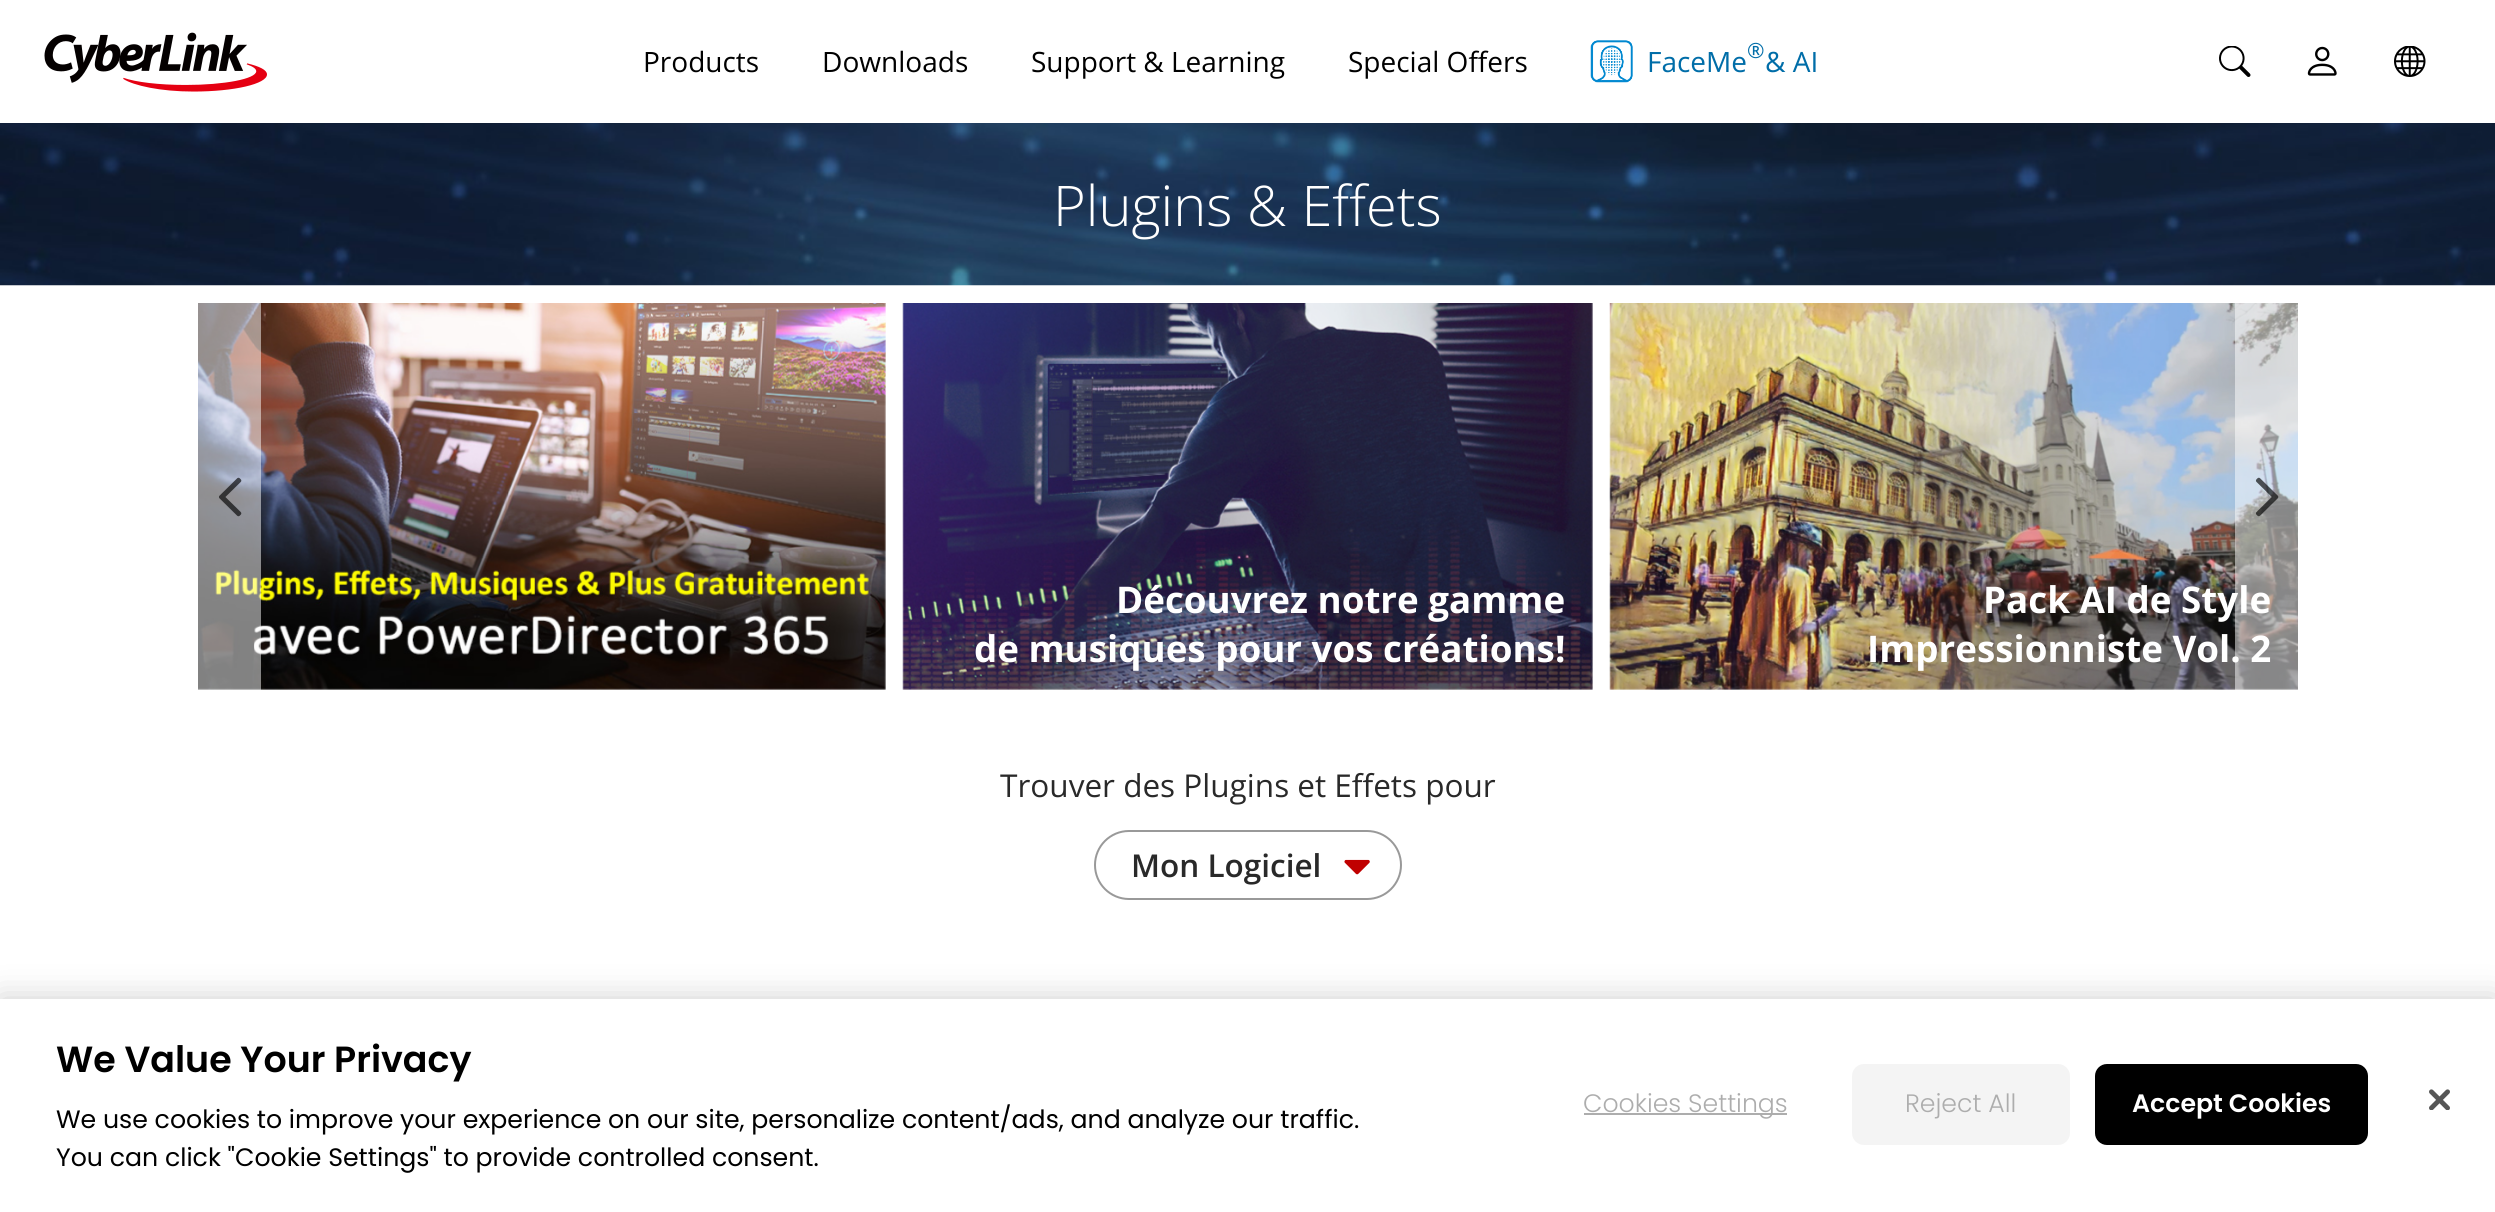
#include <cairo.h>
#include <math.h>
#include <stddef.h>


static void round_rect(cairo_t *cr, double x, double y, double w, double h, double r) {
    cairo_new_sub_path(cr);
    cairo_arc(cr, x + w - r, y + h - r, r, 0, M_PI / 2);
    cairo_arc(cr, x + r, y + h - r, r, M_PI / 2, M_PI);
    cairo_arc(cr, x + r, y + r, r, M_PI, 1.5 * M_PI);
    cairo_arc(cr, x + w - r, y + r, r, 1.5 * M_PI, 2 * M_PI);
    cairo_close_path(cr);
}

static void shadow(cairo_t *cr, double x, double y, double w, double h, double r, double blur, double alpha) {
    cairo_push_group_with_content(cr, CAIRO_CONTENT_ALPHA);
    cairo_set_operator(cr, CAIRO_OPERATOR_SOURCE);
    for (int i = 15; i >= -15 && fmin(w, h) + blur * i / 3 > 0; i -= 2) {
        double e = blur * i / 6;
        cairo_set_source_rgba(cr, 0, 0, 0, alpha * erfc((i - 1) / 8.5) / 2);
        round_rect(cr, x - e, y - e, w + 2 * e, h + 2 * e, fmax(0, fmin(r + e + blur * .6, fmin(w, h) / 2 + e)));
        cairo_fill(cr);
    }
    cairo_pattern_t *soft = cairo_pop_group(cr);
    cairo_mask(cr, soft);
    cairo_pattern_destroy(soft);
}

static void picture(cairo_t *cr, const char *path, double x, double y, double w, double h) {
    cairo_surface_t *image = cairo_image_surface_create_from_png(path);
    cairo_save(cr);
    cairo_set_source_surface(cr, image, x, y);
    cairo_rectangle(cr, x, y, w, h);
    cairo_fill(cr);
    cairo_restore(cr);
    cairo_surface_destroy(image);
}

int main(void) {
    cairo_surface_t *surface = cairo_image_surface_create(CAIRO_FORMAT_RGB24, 2495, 1212);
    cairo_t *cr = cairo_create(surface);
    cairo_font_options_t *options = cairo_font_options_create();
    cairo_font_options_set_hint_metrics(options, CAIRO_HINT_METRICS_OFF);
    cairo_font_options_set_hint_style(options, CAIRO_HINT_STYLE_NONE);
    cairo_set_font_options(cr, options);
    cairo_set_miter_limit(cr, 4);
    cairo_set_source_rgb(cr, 1, 1, 1);
    cairo_paint(cr);
    picture(cr, "img1.png", 44, 32, 223, 60);
    cairo_select_font_face(cr, "Open Sans", CAIRO_FONT_SLANT_NORMAL, CAIRO_FONT_WEIGHT_NORMAL);
    cairo_set_font_size(cr, 28);
    cairo_set_source_rgb(cr, 0, 0, 0);
    cairo_move_to(cr, 643, 72);
    cairo_show_text(cr, "Products");
    cairo_move_to(cr, 822, 72);
    cairo_show_text(cr, "Downloads");
    cairo_move_to(cr, 1031, 72);
    cairo_show_text(cr, "Support & Learning");
    cairo_move_to(cr, 1348, 72);
    cairo_show_text(cr, "Special Offers");
    picture(cr, "img2.png", 1590, 40, 43, 43);
    cairo_set_source_rgb(cr, 0, 0.427, 0.659);
    cairo_move_to(cr, 1647, 72);
    cairo_show_text(cr, "FaceMe");
    cairo_set_font_size(cr, 21);
    cairo_move_to(cr, 1747, 58);
    cairo_show_text(cr, "®");
    cairo_set_font_size(cr, 28);
    cairo_move_to(cr, 1765, 72);
    cairo_show_text(cr, "& AI");
    picture(cr, "img3.png", 2219, 46, 32, 31);
    picture(cr, "img4.png", 2307, 46, 30, 30);
    picture(cr, "img5.png", 2394, 46, 32, 31);
    picture(cr, "img6.png", 0, 123, 2495, 163);
    cairo_select_font_face(cr, "Open Sans Light", CAIRO_FONT_SLANT_NORMAL, CAIRO_FONT_WEIGHT_NORMAL);
    cairo_set_font_size(cr, 56);
    cairo_set_source_rgb(cr, 1, 1, 1);
    cairo_move_to(cr, 1053, 226);
    cairo_show_text(cr, "Plugins & Effets");
    picture(cr, "img9.png", 198, 303, 688, 387);
    cairo_set_source_rgba(cr, 1, 1, 1, 0.5);
    cairo_rectangle(cr, 198, 303, 63, 387);
    cairo_fill(cr);
    picture(cr, "img7.png", 219, 477, 23, 40);
    picture(cr, "img11.png", 1609, 303, 689, 387);
    cairo_select_font_face(cr, "Open Sans", CAIRO_FONT_SLANT_NORMAL, CAIRO_FONT_WEIGHT_BOLD);
    cairo_set_font_size(cr, 36.75);
    cairo_set_source_rgb(cr, 1, 1, 1);
    cairo_move_to(cr, 1983, 613);
    cairo_show_text(cr, "Pack AI de Style");
    cairo_move_to(cr, 1867, 662);
    cairo_show_text(cr, "Impressionniste Vol. 2");
    cairo_set_source_rgba(cr, 1, 1, 1, 0.5);
    cairo_rectangle(cr, 2235, 303, 63, 387);
    cairo_fill(cr);
    picture(cr, "img8.png", 2255, 477, 24, 40);
    picture(cr, "img10.png", 902, 303, 691, 387);
    cairo_set_source_rgb(cr, 1, 1, 1);
    cairo_move_to(cr, 1116, 613);
    cairo_show_text(cr, "Découvrez notre gamme");
    cairo_move_to(cr, 974, 662);
    cairo_show_text(cr, "de musiques pour vos créations!");
    cairo_select_font_face(cr, "Open Sans", CAIRO_FONT_SLANT_NORMAL, CAIRO_FONT_WEIGHT_NORMAL);
    cairo_set_font_size(cr, 31.5);
    cairo_set_source_rgb(cr, 0.161, 0.161, 0.161);
    cairo_move_to(cr, 1000, 797);
    cairo_show_text(cr, "Trouver des Plugins et Effets pour");
    picture(cr, "img12.png", 1344, 859, 26, 16);
    round_rect(cr, 1095, 831, 306, 68, 34);
    cairo_set_source_rgb(cr, 0.6, 0.6, 0.6);
    cairo_stroke(cr);
    cairo_select_font_face(cr, "Open Sans SemiBold", CAIRO_FONT_SLANT_NORMAL, CAIRO_FONT_WEIGHT_NORMAL);
    cairo_set_source_rgb(cr, 0.161, 0.161, 0.161);
    cairo_move_to(cr, 1131, 877);
    cairo_show_text(cr, "Mon Logiciel");
    cairo_set_source_rgb(cr, 0, 0, 0);
    shadow(cr, 0, 999, 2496, 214, 0, 16, 0.2);
    cairo_set_source_rgb(cr, 1, 1, 1);
    cairo_rectangle(cr, 0, 999, 2495, 213);
    cairo_fill(cr);
    cairo_select_font_face(cr, "Poppins SemiBold", CAIRO_FONT_SLANT_NORMAL, CAIRO_FONT_WEIGHT_NORMAL);
    cairo_set_font_size(cr, 36.4);
    cairo_set_source_rgb(cr, 0, 0, 0);
    cairo_move_to(cr, 56, 1072);
    cairo_show_text(cr, "We Value Your Privacy");
    cairo_select_font_face(cr, "Poppins", CAIRO_FONT_SLANT_NORMAL, CAIRO_FONT_WEIGHT_NORMAL);
    cairo_set_font_size(cr, 25.2);
    cairo_move_to(cr, 56, 1128);
    cairo_show_text(cr, "We use cookies to improve your experience on our site, personalize content/ads, and analyze our traffic.");
    cairo_move_to(cr, 56, 1166);
    cairo_show_text(cr, "You can click \"Cookie Settings\" to provide controlled consent.");
    cairo_set_source_rgb(cr, 0.678, 0.678, 0.678);
    cairo_rectangle(cr, 1584, 1113, 203, 2);
    cairo_fill(cr);
    cairo_select_font_face(cr, "Poppins Light", CAIRO_FONT_SLANT_NORMAL, CAIRO_FONT_WEIGHT_NORMAL);
    cairo_move_to(cr, 1583, 1112);
    cairo_show_text(cr, "Cookies Settings");
    cairo_set_source_rgb(cr, 0.957, 0.957, 0.957);
    round_rect(cr, 1852, 1064, 218, 81, 12);
    cairo_fill(cr);
    cairo_set_source_rgb(cr, 0.678, 0.678, 0.678);
    cairo_move_to(cr, 1905, 1112);
    cairo_show_text(cr, "Reject All");
    cairo_set_source_rgb(cr, 0, 0, 0);
    round_rect(cr, 2096, 1065, 271, 79, 11);
    cairo_fill_preserve(cr);
    cairo_stroke(cr);
    cairo_select_font_face(cr, "Poppins SemiBold", CAIRO_FONT_SLANT_NORMAL, CAIRO_FONT_WEIGHT_NORMAL);
    cairo_set_source_rgb(cr, 1, 1, 1);
    cairo_move_to(cr, 2132, 1112);
    cairo_show_text(cr, "Accept Cookies");
    picture(cr, "img13.png", 2429, 1089, 21, 21);
    cairo_surface_write_to_png(surface, "page.png");
    cairo_font_options_destroy(options);
    cairo_destroy(cr);
    cairo_surface_destroy(surface);
    return 0;
}
